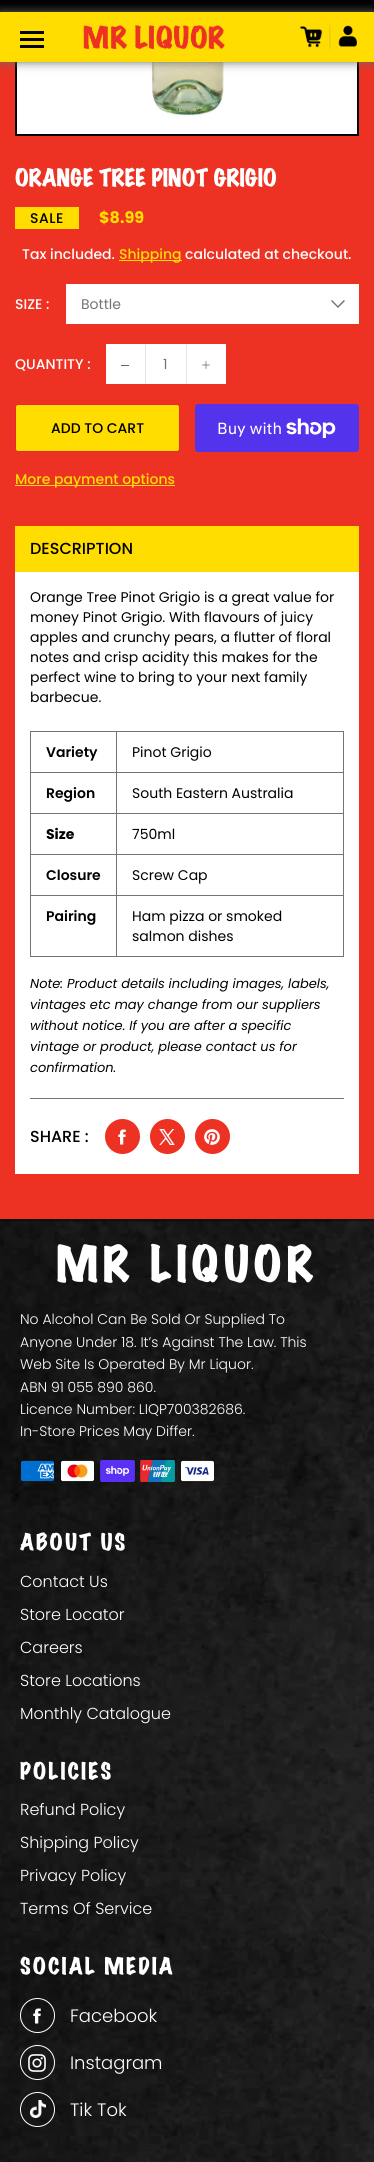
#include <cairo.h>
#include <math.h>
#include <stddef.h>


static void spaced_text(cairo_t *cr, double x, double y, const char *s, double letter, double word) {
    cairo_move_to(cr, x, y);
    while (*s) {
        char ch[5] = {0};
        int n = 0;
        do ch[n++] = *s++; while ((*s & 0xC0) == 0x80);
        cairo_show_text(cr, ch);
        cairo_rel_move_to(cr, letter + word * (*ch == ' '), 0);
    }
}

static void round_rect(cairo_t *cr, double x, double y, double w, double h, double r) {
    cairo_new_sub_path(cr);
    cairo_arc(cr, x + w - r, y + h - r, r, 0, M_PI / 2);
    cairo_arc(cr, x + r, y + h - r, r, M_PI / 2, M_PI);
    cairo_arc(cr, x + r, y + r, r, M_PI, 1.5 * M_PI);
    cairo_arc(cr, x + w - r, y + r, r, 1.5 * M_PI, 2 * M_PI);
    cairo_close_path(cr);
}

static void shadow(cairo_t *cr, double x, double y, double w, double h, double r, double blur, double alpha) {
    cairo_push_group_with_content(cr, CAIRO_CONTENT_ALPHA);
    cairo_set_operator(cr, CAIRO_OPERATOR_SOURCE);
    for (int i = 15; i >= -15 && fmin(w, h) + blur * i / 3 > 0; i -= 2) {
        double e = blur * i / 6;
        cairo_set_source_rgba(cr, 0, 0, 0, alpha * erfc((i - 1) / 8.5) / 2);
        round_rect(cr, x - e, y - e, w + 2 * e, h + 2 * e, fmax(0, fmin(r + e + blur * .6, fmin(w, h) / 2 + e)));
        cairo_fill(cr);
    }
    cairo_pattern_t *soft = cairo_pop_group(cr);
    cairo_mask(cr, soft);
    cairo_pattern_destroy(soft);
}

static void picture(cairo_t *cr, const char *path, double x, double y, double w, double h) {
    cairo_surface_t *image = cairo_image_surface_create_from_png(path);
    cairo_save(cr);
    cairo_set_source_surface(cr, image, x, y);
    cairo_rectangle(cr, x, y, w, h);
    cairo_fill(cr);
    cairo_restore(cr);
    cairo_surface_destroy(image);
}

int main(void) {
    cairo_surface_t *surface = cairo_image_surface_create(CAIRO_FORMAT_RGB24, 374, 2162);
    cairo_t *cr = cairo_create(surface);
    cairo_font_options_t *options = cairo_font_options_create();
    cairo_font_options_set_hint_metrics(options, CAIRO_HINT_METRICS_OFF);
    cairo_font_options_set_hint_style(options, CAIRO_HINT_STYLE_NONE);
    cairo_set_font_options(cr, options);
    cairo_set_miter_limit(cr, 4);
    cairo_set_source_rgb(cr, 0.012, 0.012, 0.012);
    cairo_paint(cr);
    cairo_set_source_rgb(cr, 0.929, 0.196, 0.137);
    cairo_rectangle(cr, 0, 62, 374, 1157);
    cairo_fill(cr);
    cairo_rectangle(cr, 16, -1, 342, 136);
    cairo_set_source_rgb(cr, 0, 0, 0);
    cairo_stroke(cr);
    cairo_rectangle(cr, 0, 0, 374, 12);
    cairo_fill(cr);
    cairo_set_source_rgb(cr, 1, 1, 1);
    cairo_rectangle(cr, 17, 62, 340, 72);
    cairo_fill(cr);
    picture(cr, "img4.png", 151, 62, 74, 55);
    cairo_set_source_rgb(cr, 0.416, 0.416, 0.416);
    shadow(cr, 0, 12, 374, 50, 0, 5, 1);
    cairo_set_source_rgb(cr, 1, 0.867, 0);
    cairo_rectangle(cr, 0, 12, 374, 50);
    cairo_fill(cr);
    cairo_set_source_rgb(cr, 0.012, 0.012, 0.012);
    cairo_rectangle(cr, 20, 45, 24, 3);
    cairo_fill(cr);
    cairo_rectangle(cr, 20, 31, 24, 3);
    cairo_fill(cr);
    cairo_rectangle(cr, 20, 38, 24, 3);
    cairo_fill(cr);
    picture(cr, "img1.png", 83, 24, 142, 26);
    cairo_set_source_rgb(cr, 0.953, 0.82, 0);
    cairo_rectangle(cr, 329, 25, 1, 24);
    cairo_fill(cr);
    picture(cr, "img2.png", 300, 26, 23, 22);
    picture(cr, "img3.png", 330, 25, 27, 24);
    cairo_select_font_face(cr, "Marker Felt", CAIRO_FONT_SLANT_NORMAL, CAIRO_FONT_WEIGHT_BOLD);
    cairo_set_font_size(cr, 22);
    cairo_set_source_rgb(cr, 1, 1, 1);
    cairo_move_to(cr, 15, 186);
    cairo_show_text(cr, "ORANGE TREE PINOT GRIGIO");
    cairo_set_source_rgb(cr, 1, 0.867, 0);
    cairo_rectangle(cr, 15, 207, 64, 22);
    cairo_fill(cr);
    cairo_select_font_face(cr, "Poppins Medium", CAIRO_FONT_SLANT_NORMAL, CAIRO_FONT_WEIGHT_NORMAL);
    cairo_set_font_size(cr, 14);
    cairo_set_source_rgb(cr, 0, 0, 0);
    spaced_text(cr, 30, 223, "SALE", 0.5, 0);
    cairo_select_font_face(cr, "Poppins", CAIRO_FONT_SLANT_NORMAL, CAIRO_FONT_WEIGHT_BOLD);
    cairo_set_font_size(cr, 16);
    cairo_set_source_rgb(cr, 1, 0.867, 0);
    cairo_move_to(cr, 99, 223);
    cairo_show_text(cr, "$8.99");
    cairo_select_font_face(cr, "Poppins Medium", CAIRO_FONT_SLANT_NORMAL, CAIRO_FONT_WEIGHT_NORMAL);
    cairo_set_font_size(cr, 14);
    cairo_set_source_rgb(cr, 1, 1, 1);
    cairo_move_to(cr, 22, 259);
    cairo_show_text(cr, "Tax included.");
    cairo_set_source_rgb(cr, 1, 0.867, 0);
    cairo_rectangle(cr, 119, 260, 63, 1);
    cairo_fill(cr);
    cairo_move_to(cr, 119, 259);
    cairo_show_text(cr, "Shipping");
    cairo_set_source_rgb(cr, 1, 1, 1);
    cairo_move_to(cr, 185, 259);
    cairo_show_text(cr, "calculated at checkout.");
    cairo_move_to(cr, 15, 309);
    cairo_show_text(cr, "SIZE :");
    cairo_rectangle(cr, 66, 284, 293, 40);
    cairo_fill(cr);
    picture(cr, "img5.png", 331, 300, 14, 8);
    cairo_select_font_face(cr, "Poppins", CAIRO_FONT_SLANT_NORMAL, CAIRO_FONT_WEIGHT_NORMAL);
    cairo_set_source_rgb(cr, 0.455, 0.455, 0.455);
    cairo_move_to(cr, 81, 309);
    cairo_show_text(cr, "Bottle");
    cairo_select_font_face(cr, "Poppins Medium", CAIRO_FONT_SLANT_NORMAL, CAIRO_FONT_WEIGHT_NORMAL);
    cairo_set_source_rgb(cr, 1, 1, 1);
    cairo_move_to(cr, 15, 369);
    cairo_show_text(cr, "QUANTITY :");
    cairo_rectangle(cr, 106, 344, 120, 40);
    cairo_fill(cr);
    cairo_set_source_rgb(cr, 0.906, 0.906, 0.906);
    cairo_rectangle(cr, 145, 344, 1, 40);
    cairo_fill(cr);
    cairo_set_source_rgb(cr, 0.4, 0.4, 0.4);
    cairo_rectangle(cr, 121, 365, 8, 1);
    cairo_fill(cr);
    cairo_select_font_face(cr, "Poppins", CAIRO_FONT_SLANT_NORMAL, CAIRO_FONT_WEIGHT_NORMAL);
    cairo_set_source_rgb(cr, 0.455, 0.455, 0.455);
    cairo_move_to(cr, 163, 369);
    cairo_show_text(cr, "1");
    cairo_set_source_rgb(cr, 0.906, 0.906, 0.906);
    cairo_rectangle(cr, 186, 344, 1, 40);
    cairo_fill(cr);
    picture(cr, "img6.png", 202, 361, 8, 8);
    cairo_set_source_rgb(cr, 1, 0.867, 0);
    round_rect(cr, 15.5, 404.5, 164, 47, 2.5);
    cairo_fill_preserve(cr);
    cairo_set_source_rgb(cr, 0.89, 0.173, 0.169);
    cairo_set_line_width(cr, 1);
    cairo_stroke(cr);
    cairo_select_font_face(cr, "Poppins Medium", CAIRO_FONT_SLANT_NORMAL, CAIRO_FONT_WEIGHT_NORMAL);
    cairo_set_source_rgb(cr, 0, 0, 0);
    cairo_move_to(cr, 51, 433);
    cairo_show_text(cr, "ADD TO CART");
    cairo_set_source_rgb(cr, 0.329, 0.2, 0.922);
    round_rect(cr, 195, 404, 164, 48, 3);
    cairo_fill(cr);
    cairo_select_font_face(cr, "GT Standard", CAIRO_FONT_SLANT_NORMAL, CAIRO_FONT_WEIGHT_NORMAL);
    cairo_set_font_size(cr, 16);
    cairo_set_source_rgb(cr, 1, 1, 1);
    cairo_move_to(cr, 217, 434);
    cairo_show_text(cr, "Buy with");
    picture(cr, "img7.png", 286, 418, 50, 20);
    cairo_set_source_rgb(cr, 1, 0.867, 0);
    cairo_rectangle(cr, 15, 485, 160, 1);
    cairo_fill(cr);
    cairo_select_font_face(cr, "Poppins Medium", CAIRO_FONT_SLANT_NORMAL, CAIRO_FONT_WEIGHT_NORMAL);
    cairo_set_font_size(cr, 14);
    cairo_move_to(cr, 15, 484);
    cairo_show_text(cr, "More payment options");
    cairo_rectangle(cr, 15, 526, 344, 46);
    cairo_fill(cr);
    cairo_set_font_size(cr, 16);
    cairo_set_source_rgb(cr, 0, 0, 0);
    cairo_move_to(cr, 30, 554);
    cairo_show_text(cr, "DESCRIPTION");
    cairo_set_source_rgb(cr, 1, 1, 1);
    cairo_rectangle(cr, 15, 572, 344, 602);
    cairo_fill(cr);
    cairo_select_font_face(cr, "Poppins", CAIRO_FONT_SLANT_NORMAL, CAIRO_FONT_WEIGHT_NORMAL);
    cairo_set_font_size(cr, 14);
    cairo_set_source_rgb(cr, 0, 0, 0);
    cairo_move_to(cr, 30, 602);
    cairo_show_text(cr, "Orange Tree Pinot Grigio is a great value for");
    cairo_move_to(cr, 30, 622);
    cairo_show_text(cr, "money Pinot Grigio. With flavours of juicy");
    cairo_move_to(cr, 30, 642);
    cairo_show_text(cr, "apples and crunchy pears, a flutter of floral");
    cairo_move_to(cr, 30, 662);
    cairo_show_text(cr, "notes and crisp acidity this makes for the");
    cairo_move_to(cr, 30, 682);
    cairo_show_text(cr, "perfect wine to bring to your next family");
    cairo_move_to(cr, 30, 702);
    cairo_show_text(cr, "barbecue.");
    cairo_set_source_rgb(cr, 0.455, 0.455, 0.455);
    cairo_rectangle(cr, 116, 731, 228, 1);
    cairo_fill(cr);
    cairo_rectangle(cr, 116, 772, 228, 1);
    cairo_fill(cr);
    cairo_rectangle(cr, 116, 813, 228, 1);
    cairo_fill(cr);
    cairo_rectangle(cr, 116, 854, 228, 1);
    cairo_fill(cr);
    cairo_rectangle(cr, 116, 895, 228, 1);
    cairo_fill(cr);
    cairo_rectangle(cr, 343, 895, 1, 62);
    cairo_fill(cr);
    cairo_rectangle(cr, 116, 956, 228, 1);
    cairo_fill(cr);
    cairo_rectangle(cr, 116, 895, 1, 62);
    cairo_fill(cr);
    cairo_rectangle(cr, 30, 895, 87, 1);
    cairo_fill(cr);
    cairo_rectangle(cr, 116, 854, 1, 42);
    cairo_fill(cr);
    cairo_rectangle(cr, 30, 854, 87, 1);
    cairo_fill(cr);
    cairo_rectangle(cr, 116, 813, 1, 42);
    cairo_fill(cr);
    cairo_rectangle(cr, 30, 813, 87, 1);
    cairo_fill(cr);
    cairo_rectangle(cr, 116, 772, 1, 42);
    cairo_fill(cr);
    cairo_rectangle(cr, 30, 772, 87, 1);
    cairo_fill(cr);
    cairo_rectangle(cr, 116, 731, 1, 42);
    cairo_fill(cr);
    cairo_rectangle(cr, 30, 731, 87, 1);
    cairo_fill(cr);
    cairo_rectangle(cr, 30, 956, 87, 1);
    cairo_fill(cr);
    cairo_rectangle(cr, 30, 895, 1, 62);
    cairo_fill(cr);
    cairo_rectangle(cr, 30, 854, 1, 42);
    cairo_fill(cr);
    cairo_rectangle(cr, 30, 813, 1, 42);
    cairo_fill(cr);
    cairo_rectangle(cr, 30, 772, 1, 42);
    cairo_fill(cr);
    cairo_rectangle(cr, 30, 731, 1, 42);
    cairo_fill(cr);
    cairo_select_font_face(cr, "Poppins SemiBold", CAIRO_FONT_SLANT_NORMAL, CAIRO_FONT_WEIGHT_NORMAL);
    cairo_set_source_rgb(cr, 0, 0, 0);
    cairo_move_to(cr, 46, 757);
    cairo_show_text(cr, "Variety");
    cairo_set_source_rgb(cr, 0.455, 0.455, 0.455);
    cairo_rectangle(cr, 343, 854, 1, 42);
    cairo_fill(cr);
    cairo_rectangle(cr, 343, 813, 1, 42);
    cairo_fill(cr);
    cairo_rectangle(cr, 343, 772, 1, 42);
    cairo_fill(cr);
    cairo_rectangle(cr, 343, 731, 1, 42);
    cairo_fill(cr);
    cairo_select_font_face(cr, "Poppins", CAIRO_FONT_SLANT_NORMAL, CAIRO_FONT_WEIGHT_NORMAL);
    cairo_set_source_rgb(cr, 0, 0, 0);
    cairo_move_to(cr, 132, 757);
    cairo_show_text(cr, "Pinot Grigio");
    cairo_select_font_face(cr, "Poppins SemiBold", CAIRO_FONT_SLANT_NORMAL, CAIRO_FONT_WEIGHT_NORMAL);
    cairo_move_to(cr, 46, 798);
    cairo_show_text(cr, "Region");
    cairo_select_font_face(cr, "Poppins", CAIRO_FONT_SLANT_NORMAL, CAIRO_FONT_WEIGHT_NORMAL);
    cairo_move_to(cr, 132, 798);
    cairo_show_text(cr, "South Eastern Australia");
    cairo_select_font_face(cr, "Poppins", CAIRO_FONT_SLANT_NORMAL, CAIRO_FONT_WEIGHT_BOLD);
    cairo_move_to(cr, 46, 839);
    cairo_show_text(cr, "Size");
    cairo_select_font_face(cr, "Poppins", CAIRO_FONT_SLANT_NORMAL, CAIRO_FONT_WEIGHT_NORMAL);
    cairo_move_to(cr, 132, 839);
    cairo_show_text(cr, "750ml");
    cairo_select_font_face(cr, "Poppins SemiBold", CAIRO_FONT_SLANT_NORMAL, CAIRO_FONT_WEIGHT_NORMAL);
    cairo_move_to(cr, 46, 880);
    cairo_show_text(cr, "Closure");
    cairo_select_font_face(cr, "Poppins", CAIRO_FONT_SLANT_NORMAL, CAIRO_FONT_WEIGHT_NORMAL);
    cairo_move_to(cr, 132, 880);
    cairo_show_text(cr, "Screw Cap");
    cairo_select_font_face(cr, "Poppins SemiBold", CAIRO_FONT_SLANT_NORMAL, CAIRO_FONT_WEIGHT_NORMAL);
    cairo_move_to(cr, 46, 921);
    cairo_show_text(cr, "Pairing");
    cairo_select_font_face(cr, "Poppins", CAIRO_FONT_SLANT_NORMAL, CAIRO_FONT_WEIGHT_NORMAL);
    cairo_move_to(cr, 132, 921);
    cairo_show_text(cr, "Ham pizza or smoked");
    cairo_move_to(cr, 132, 941);
    cairo_show_text(cr, "salmon dishes");
    cairo_select_font_face(cr, "Poppins", CAIRO_FONT_SLANT_ITALIC, CAIRO_FONT_WEIGHT_NORMAL);
    cairo_set_font_size(cr, 13);
    cairo_move_to(cr, 30, 988);
    cairo_show_text(cr, "Note: Product details including images, labels,");
    cairo_move_to(cr, 30, 1009);
    cairo_show_text(cr, "vintages etc may change from our suppliers");
    cairo_move_to(cr, 30, 1030);
    cairo_show_text(cr, "without notice. If you are after a specific");
    cairo_move_to(cr, 30, 1051);
    cairo_show_text(cr, "vintage or product, please contact us for");
    cairo_move_to(cr, 30, 1072);
    cairo_show_text(cr, "confirmation.");
    cairo_set_source_rgb(cr, 0.455, 0.455, 0.455);
    cairo_rectangle(cr, 30, 1098, 314, 1);
    cairo_fill(cr);
    cairo_select_font_face(cr, "Poppins Medium", CAIRO_FONT_SLANT_NORMAL, CAIRO_FONT_WEIGHT_NORMAL);
    cairo_set_font_size(cr, 16);
    cairo_set_source_rgb(cr, 0, 0, 0);
    cairo_move_to(cr, 30, 1142);
    cairo_show_text(cr, "SHARE :");
    cairo_set_source_rgb(cr, 0.929, 0.196, 0.137);
    cairo_new_path(cr);
    cairo_arc(cr, 122.5, 1136.5, 17.5, 0, 2 * M_PI);
    cairo_fill(cr);
    picture(cr, "img8.png", 118, 1129, 8, 16);
    cairo_arc(cr, 167.5, 1136.5, 17.5, 0, 2 * M_PI);
    cairo_fill(cr);
    picture(cr, "img9.png", 159, 1129, 16, 16);
    cairo_arc(cr, 212.5, 1136.5, 17.5, 0, 2 * M_PI);
    cairo_fill(cr);
    picture(cr, "img10.png", 204, 1129, 16, 16);
    picture(cr, "img11.png", 0, 1219, 374, 943);
    cairo_select_font_face(cr, "Marker Felt", CAIRO_FONT_SLANT_NORMAL, CAIRO_FONT_WEIGHT_BOLD);
    cairo_set_font_size(cr, 45);
    cairo_set_source_rgb(cr, 1, 1, 1);
    spaced_text(cr, 56, 1281, "MR LIQUOR", 4.5, 0);
    cairo_select_font_face(cr, "Poppins Light", CAIRO_FONT_SLANT_NORMAL, CAIRO_FONT_WEIGHT_NORMAL);
    cairo_set_font_size(cr, 14);
    cairo_move_to(cr, 20, 1324);
    cairo_show_text(cr, "No Alcohol Can Be Sold Or Supplied To");
    cairo_move_to(cr, 20, 1347);
    cairo_show_text(cr, "Anyone Under 18. It’s Against The Law. This");
    cairo_move_to(cr, 20, 1369);
    cairo_show_text(cr, "Web Site Is Operated By Mr Liquor.");
    cairo_move_to(cr, 20, 1392);
    cairo_show_text(cr, "ABN 91 055 890 860.");
    cairo_move_to(cr, 20, 1414);
    cairo_show_text(cr, "Licence Number: LIQP700382686.");
    cairo_move_to(cr, 20, 1436);
    cairo_show_text(cr, "In-Store Prices May Differ.");
    picture(cr, "img12.png", 21, 1460, 33, 22);
    picture(cr, "img13.png", 61, 1460, 33, 22);
    picture(cr, "img14.png", 100, 1460, 35, 22);
    picture(cr, "img15.png", 140, 1460, 35, 22);
    picture(cr, "img16.png", 181, 1460, 33, 22);
    cairo_select_font_face(cr, "Marker Felt", CAIRO_FONT_SLANT_NORMAL, CAIRO_FONT_WEIGHT_BOLD);
    cairo_set_font_size(cr, 21);
    spaced_text(cr, 20, 1550, "ABOUT US", 2.1, 0);
    cairo_select_font_face(cr, "Poppins Light", CAIRO_FONT_SLANT_NORMAL, CAIRO_FONT_WEIGHT_NORMAL);
    cairo_set_font_size(cr, 16);
    cairo_move_to(cr, 20, 1587);
    cairo_show_text(cr, "Contact Us");
    cairo_move_to(cr, 20, 1620);
    cairo_show_text(cr, "Store Locator");
    cairo_move_to(cr, 20, 1653);
    cairo_show_text(cr, "Careers");
    cairo_move_to(cr, 20, 1686);
    cairo_show_text(cr, "Store Locations");
    cairo_move_to(cr, 20, 1719);
    cairo_show_text(cr, "Monthly Catalogue");
    cairo_select_font_face(cr, "Marker Felt", CAIRO_FONT_SLANT_NORMAL, CAIRO_FONT_WEIGHT_BOLD);
    cairo_set_font_size(cr, 21);
    spaced_text(cr, 20, 1779, "POLICIES", 2.1, 0);
    cairo_select_font_face(cr, "Poppins Light", CAIRO_FONT_SLANT_NORMAL, CAIRO_FONT_WEIGHT_NORMAL);
    cairo_set_font_size(cr, 16);
    cairo_move_to(cr, 20, 1815);
    cairo_show_text(cr, "Refund Policy");
    cairo_move_to(cr, 20, 1848);
    cairo_show_text(cr, "Shipping Policy");
    cairo_move_to(cr, 20, 1881);
    cairo_show_text(cr, "Privacy Policy");
    cairo_move_to(cr, 20, 1914);
    cairo_show_text(cr, "Terms Of Service");
    cairo_select_font_face(cr, "Marker Felt", CAIRO_FONT_SLANT_NORMAL, CAIRO_FONT_WEIGHT_BOLD);
    cairo_set_font_size(cr, 21);
    spaced_text(cr, 20, 1974, "SOCIAL MEDIA", 2.1, 0);
    cairo_new_path(cr);
    cairo_arc(cr, 37.5, 2015.5, 17, 0, 2 * M_PI);
    cairo_stroke(cr);
    picture(cr, "img17.png", 33, 2008, 8, 16);
    cairo_select_font_face(cr, "Poppins Light", CAIRO_FONT_SLANT_NORMAL, CAIRO_FONT_WEIGHT_NORMAL);
    cairo_set_font_size(cr, 18);
    cairo_move_to(cr, 70, 2022);
    cairo_show_text(cr, "Facebook");
    cairo_new_path(cr);
    cairo_arc(cr, 37.5, 2062.5, 17, 0, 2 * M_PI);
    cairo_stroke(cr);
    picture(cr, "img18.png", 28, 2054, 18, 18);
    cairo_move_to(cr, 70, 2069);
    cairo_show_text(cr, "Instagram");
    cairo_new_path(cr);
    cairo_arc(cr, 37.5, 2109.5, 17, 0, 2 * M_PI);
    cairo_stroke(cr);
    picture(cr, "img19.png", 30, 2100, 16, 18);
    cairo_move_to(cr, 70, 2116);
    cairo_show_text(cr, "Tik Tok");
    cairo_surface_write_to_png(surface, "page.png");
    cairo_font_options_destroy(options);
    cairo_destroy(cr);
    cairo_surface_destroy(surface);
    return 0;
}
